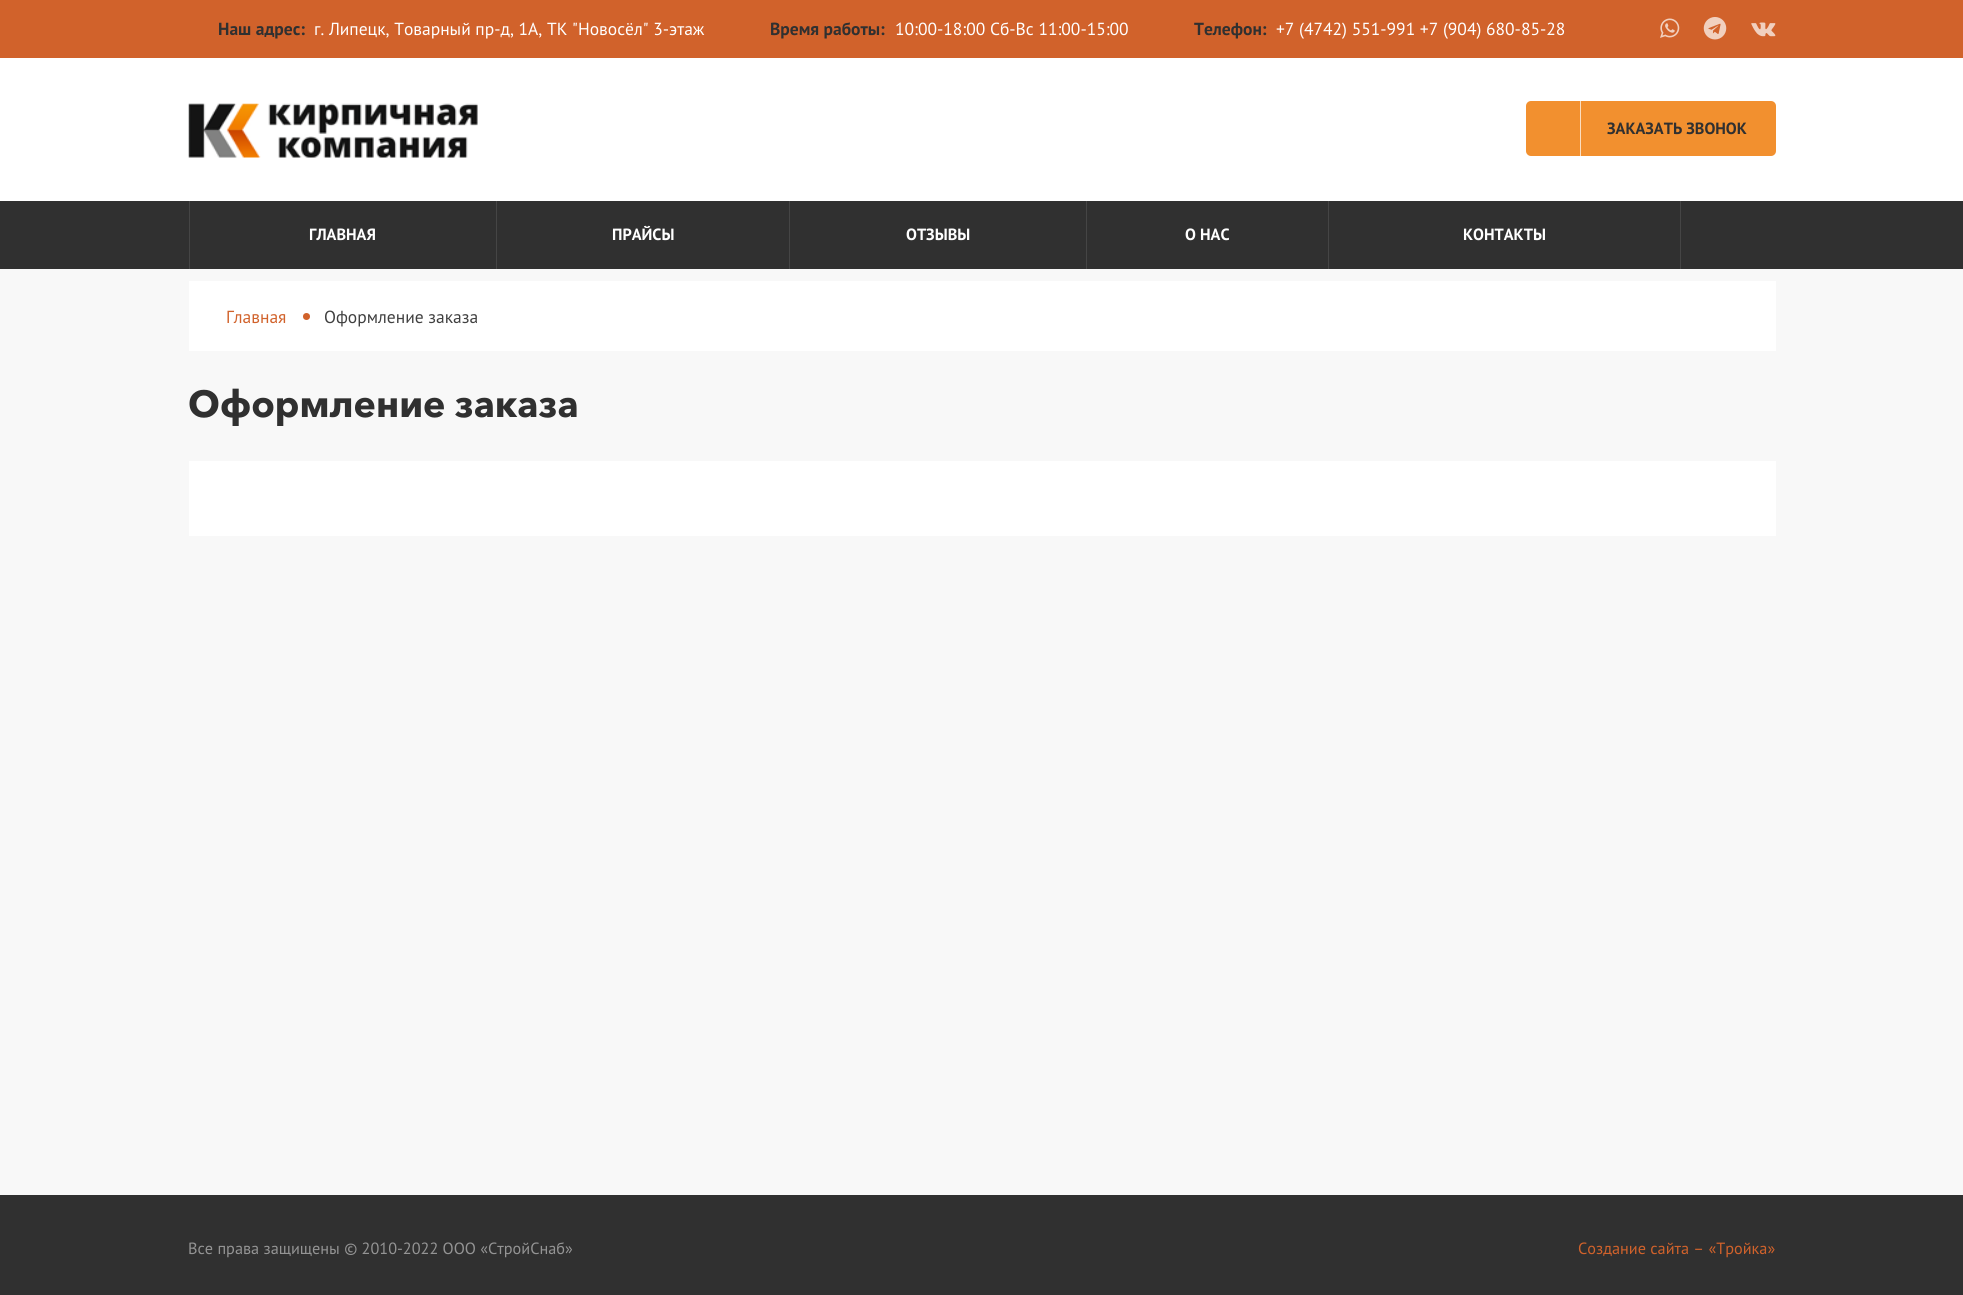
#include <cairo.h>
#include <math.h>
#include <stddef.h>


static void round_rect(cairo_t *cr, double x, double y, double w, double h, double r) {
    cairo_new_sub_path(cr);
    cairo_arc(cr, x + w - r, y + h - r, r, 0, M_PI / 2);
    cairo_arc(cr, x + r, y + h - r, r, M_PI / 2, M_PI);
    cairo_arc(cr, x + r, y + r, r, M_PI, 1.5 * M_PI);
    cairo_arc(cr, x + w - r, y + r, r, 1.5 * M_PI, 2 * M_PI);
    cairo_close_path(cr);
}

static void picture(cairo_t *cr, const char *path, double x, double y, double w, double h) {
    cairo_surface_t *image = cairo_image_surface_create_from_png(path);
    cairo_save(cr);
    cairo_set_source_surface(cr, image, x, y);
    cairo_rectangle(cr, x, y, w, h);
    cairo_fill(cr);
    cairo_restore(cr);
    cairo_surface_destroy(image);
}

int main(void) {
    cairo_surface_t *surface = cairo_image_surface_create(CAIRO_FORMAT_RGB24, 1963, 1295);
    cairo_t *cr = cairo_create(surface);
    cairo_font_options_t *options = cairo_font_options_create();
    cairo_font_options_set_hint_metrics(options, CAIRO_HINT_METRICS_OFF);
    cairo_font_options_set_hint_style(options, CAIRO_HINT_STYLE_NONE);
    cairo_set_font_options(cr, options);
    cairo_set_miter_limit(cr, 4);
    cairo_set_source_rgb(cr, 0.969, 0.969, 0.969);
    cairo_paint(cr);
    cairo_set_source_rgb(cr, 1, 1, 1);
    cairo_rectangle(cr, 0, 58, 1963, 143);
    cairo_fill(cr);
    cairo_set_source_rgb(cr, 0.82, 0.384, 0.169);
    cairo_rectangle(cr, 0, 0, 1963, 58);
    cairo_fill(cr);
    cairo_select_font_face(cr, "PT Sans", CAIRO_FONT_SLANT_NORMAL, CAIRO_FONT_WEIGHT_BOLD);
    cairo_set_font_size(cr, 17.5);
    cairo_set_source_rgb(cr, 0.188, 0.188, 0.188);
    cairo_move_to(cr, 218, 35);
    cairo_show_text(cr, "Наш адрес:");
    cairo_select_font_face(cr, "PT Sans", CAIRO_FONT_SLANT_NORMAL, CAIRO_FONT_WEIGHT_NORMAL);
    cairo_set_source_rgb(cr, 1, 1, 1);
    cairo_move_to(cr, 314, 35);
    cairo_show_text(cr, "г. Липецк, Товарный пр-д, 1А, ТК \"Новосёл\" 3-этаж");
    cairo_select_font_face(cr, "PT Sans", CAIRO_FONT_SLANT_NORMAL, CAIRO_FONT_WEIGHT_BOLD);
    cairo_set_source_rgb(cr, 0.188, 0.188, 0.188);
    cairo_move_to(cr, 770, 35);
    cairo_show_text(cr, "Время работы:");
    cairo_select_font_face(cr, "PT Sans", CAIRO_FONT_SLANT_NORMAL, CAIRO_FONT_WEIGHT_NORMAL);
    cairo_set_source_rgb(cr, 1, 1, 1);
    cairo_move_to(cr, 895, 35);
    cairo_show_text(cr, "10:00-18:00 Сб-Вс 11:00-15:00");
    cairo_select_font_face(cr, "PT Sans", CAIRO_FONT_SLANT_NORMAL, CAIRO_FONT_WEIGHT_BOLD);
    cairo_set_source_rgb(cr, 0.188, 0.188, 0.188);
    cairo_move_to(cr, 1194, 35);
    cairo_show_text(cr, "Телефон:");
    cairo_select_font_face(cr, "PT Sans", CAIRO_FONT_SLANT_NORMAL, CAIRO_FONT_WEIGHT_NORMAL);
    cairo_set_source_rgb(cr, 1, 1, 1);
    cairo_move_to(cr, 1276, 35);
    cairo_show_text(cr, "+7 (4742) 551-991 +7 (904) 680-85-28");
    picture(cr, "img1.png", 1660, 18, 20, 20);
    picture(cr, "img2.png", 1703, 17, 24, 23);
    picture(cr, "img3.png", 1751, 22, 25, 15);
    picture(cr, "img4.png", 188, 103, 290, 55);
    cairo_set_source_rgb(cr, 0.949, 0.565, 0.184);
    round_rect(cr, 1526, 101, 250, 55, 5);
    cairo_fill(cr);
    cairo_set_source_rgb(cr, 0.984, 0.871, 0.757);
    cairo_rectangle(cr, 1580, 101, 1, 55);
    cairo_fill(cr);
    cairo_select_font_face(cr, "PT Sans", CAIRO_FONT_SLANT_NORMAL, CAIRO_FONT_WEIGHT_BOLD);
    cairo_set_font_size(cr, 16.25);
    cairo_set_source_rgb(cr, 0.188, 0.188, 0.188);
    cairo_move_to(cr, 1607, 134);
    cairo_show_text(cr, "ЗАКАЗАТЬ ЗВОНОК");
    cairo_rectangle(cr, 0, 201, 1963, 68);
    cairo_fill(cr);
    cairo_set_source_rgb(cr, 0.271, 0.271, 0.271);
    cairo_rectangle(cr, 496, 201, 1, 68);
    cairo_fill(cr);
    cairo_rectangle(cr, 189, 201, 1, 68);
    cairo_fill(cr);
    cairo_set_source_rgb(cr, 1, 1, 1);
    cairo_move_to(cr, 309, 240);
    cairo_show_text(cr, "ГЛАВНАЯ");
    cairo_set_source_rgb(cr, 0.271, 0.271, 0.271);
    cairo_rectangle(cr, 789, 201, 1, 68);
    cairo_fill(cr);
    cairo_set_source_rgb(cr, 1, 1, 1);
    cairo_move_to(cr, 612, 240);
    cairo_show_text(cr, "ПРАЙСЫ");
    cairo_set_source_rgb(cr, 0.271, 0.271, 0.271);
    cairo_rectangle(cr, 1086, 201, 1, 68);
    cairo_fill(cr);
    cairo_set_source_rgb(cr, 1, 1, 1);
    cairo_move_to(cr, 906, 240);
    cairo_show_text(cr, "ОТЗЫВЫ");
    cairo_set_source_rgb(cr, 0.271, 0.271, 0.271);
    cairo_rectangle(cr, 1328, 201, 1, 68);
    cairo_fill(cr);
    cairo_set_source_rgb(cr, 1, 1, 1);
    cairo_move_to(cr, 1185, 240);
    cairo_show_text(cr, "О НАC");
    cairo_set_source_rgb(cr, 0.271, 0.271, 0.271);
    cairo_rectangle(cr, 1680, 201, 1, 68);
    cairo_fill(cr);
    cairo_set_source_rgb(cr, 1, 1, 1);
    cairo_move_to(cr, 1463, 240);
    cairo_show_text(cr, "КОНТАКТЫ");
    cairo_rectangle(cr, 189, 281, 1587, 70);
    cairo_fill(cr);
    cairo_select_font_face(cr, "PT Sans", CAIRO_FONT_SLANT_NORMAL, CAIRO_FONT_WEIGHT_NORMAL);
    cairo_set_font_size(cr, 17.5);
    cairo_set_source_rgb(cr, 0.82, 0.384, 0.169);
    cairo_move_to(cr, 226, 323);
    cairo_show_text(cr, "Главная");
    cairo_new_path(cr);
    cairo_arc(cr, 306.5, 316.5, 3.5, 0, 2 * M_PI);
    cairo_fill(cr);
    cairo_set_source_rgb(cr, 0.251, 0.251, 0.251);
    cairo_move_to(cr, 324, 323);
    cairo_show_text(cr, "Оформление заказа");
    cairo_select_font_face(cr, "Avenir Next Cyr", CAIRO_FONT_SLANT_NORMAL, CAIRO_FONT_WEIGHT_BOLD);
    cairo_set_font_size(cr, 37.5);
    cairo_set_source_rgb(cr, 0.188, 0.188, 0.188);
    cairo_move_to(cr, 188, 417);
    cairo_show_text(cr, "Оформление заказа");
    cairo_set_source_rgb(cr, 1, 1, 1);
    cairo_rectangle(cr, 189, 461, 1587, 75);
    cairo_fill(cr);
    cairo_set_source_rgb(cr, 0.188, 0.188, 0.188);
    cairo_rectangle(cr, 0, 1195, 1963, 100);
    cairo_fill(cr);
    cairo_select_font_face(cr, "PT Sans", CAIRO_FONT_SLANT_NORMAL, CAIRO_FONT_WEIGHT_NORMAL);
    cairo_set_font_size(cr, 16.25);
    cairo_set_source_rgb(cr, 0.58, 0.58, 0.58);
    cairo_move_to(cr, 188, 1254);
    cairo_show_text(cr, "Все права защищены © 2010-2022 ООО «СтройСнаб»");
    cairo_set_source_rgb(cr, 0.82, 0.384, 0.169);
    cairo_move_to(cr, 1578, 1254);
    cairo_show_text(cr, "Создание сайта – «Тройка»");
    cairo_surface_write_to_png(surface, "page.png");
    cairo_font_options_destroy(options);
    cairo_destroy(cr);
    cairo_surface_destroy(surface);
    return 0;
}
